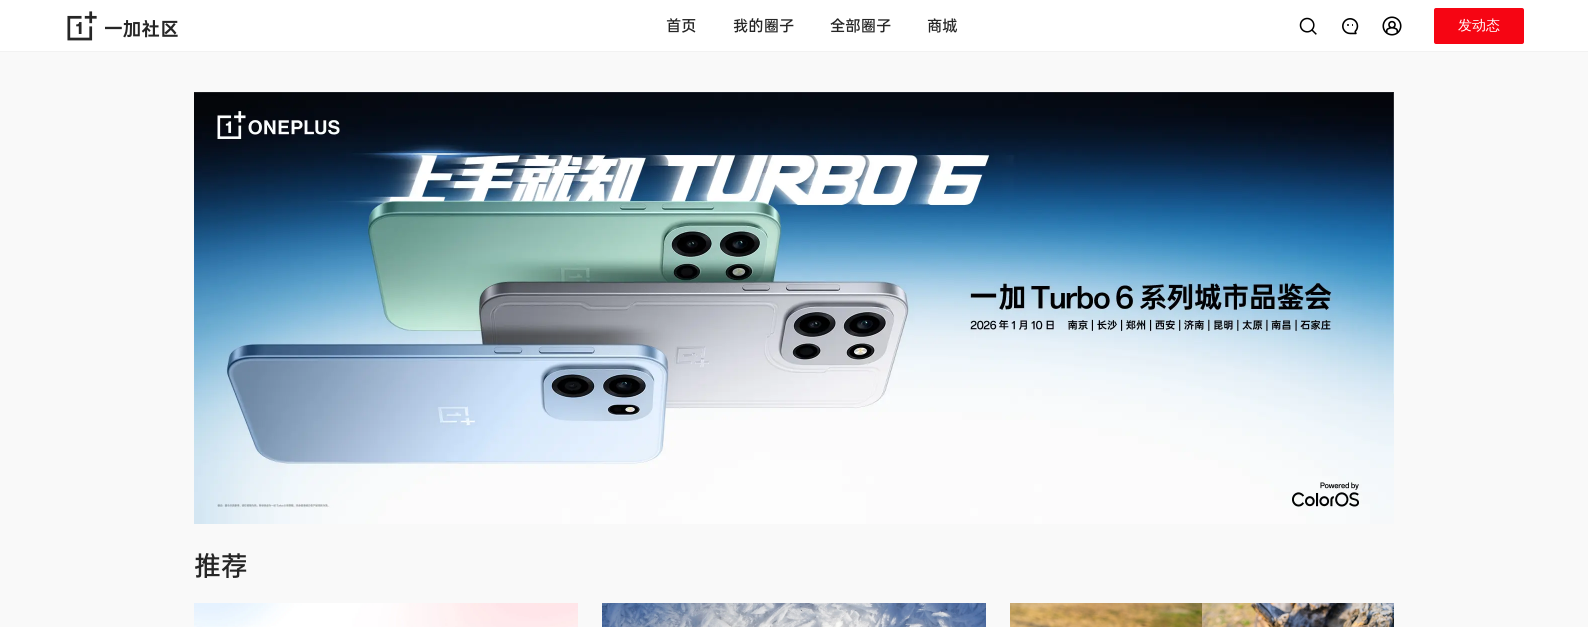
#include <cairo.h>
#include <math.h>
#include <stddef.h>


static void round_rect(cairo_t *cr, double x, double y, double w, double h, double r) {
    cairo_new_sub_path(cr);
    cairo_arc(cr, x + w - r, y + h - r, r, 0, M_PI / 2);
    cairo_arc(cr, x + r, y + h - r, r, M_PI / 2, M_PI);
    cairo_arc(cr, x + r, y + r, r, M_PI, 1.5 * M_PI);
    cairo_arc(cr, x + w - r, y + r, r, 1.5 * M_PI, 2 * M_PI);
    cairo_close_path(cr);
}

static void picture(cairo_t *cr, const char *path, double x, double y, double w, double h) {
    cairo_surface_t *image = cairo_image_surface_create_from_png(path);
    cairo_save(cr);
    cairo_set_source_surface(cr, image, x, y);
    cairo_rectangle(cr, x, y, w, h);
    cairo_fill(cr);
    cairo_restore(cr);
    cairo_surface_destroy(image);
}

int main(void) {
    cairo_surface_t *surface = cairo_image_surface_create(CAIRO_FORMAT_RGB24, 1588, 627);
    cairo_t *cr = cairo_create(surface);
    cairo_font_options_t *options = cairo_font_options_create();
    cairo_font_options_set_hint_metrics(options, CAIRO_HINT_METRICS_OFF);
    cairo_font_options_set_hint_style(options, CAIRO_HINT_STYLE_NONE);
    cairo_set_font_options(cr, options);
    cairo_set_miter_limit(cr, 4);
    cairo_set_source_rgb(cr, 1, 1, 1);
    cairo_paint(cr);
    cairo_set_source_rgb(cr, 0.949, 0.949, 0.949);
    cairo_rectangle(cr, 0, 51, 1588, 1);
    cairo_fill(cr);
    picture(cr, "img1.png", 67, 11, 111, 30);
    cairo_select_font_face(cr, "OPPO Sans", CAIRO_FONT_SLANT_NORMAL, CAIRO_FONT_WEIGHT_NORMAL);
    cairo_set_font_size(cr, 16);
    cairo_set_source_rgb(cr, 0.145, 0.145, 0.145);
    cairo_move_to(cr, 666, 32);
    cairo_show_text(cr, "首页");
    cairo_move_to(cr, 733, 32);
    cairo_show_text(cr, "我的圈子");
    cairo_move_to(cr, 830, 32);
    cairo_show_text(cr, "全部圈子");
    cairo_move_to(cr, 927, 32);
    cairo_show_text(cr, "商城");
    picture(cr, "img2.png", 1299, 17, 18, 18);
    picture(cr, "img3.png", 1342, 18, 17, 17);
    picture(cr, "img4.png", 1382, 16, 20, 20);
    cairo_set_source_rgb(cr, 0.961, 0.02, 0.078);
    round_rect(cr, 1434, 8, 90, 36, 2);
    cairo_fill(cr);
    cairo_select_font_face(cr, "WenQuanYi Zen Hei Medium", CAIRO_FONT_SLANT_NORMAL, CAIRO_FONT_WEIGHT_NORMAL);
    cairo_set_font_size(cr, 14);
    cairo_set_source_rgb(cr, 1, 1, 1);
    cairo_move_to(cr, 1458, 30);
    cairo_show_text(cr, "发动态");
    cairo_set_source_rgb(cr, 0.976, 0.976, 0.976);
    cairo_rectangle(cr, 0, 52, 1588, 575);
    cairo_fill(cr);
    picture(cr, "img5.png", 194, 92, 1200, 432);
    cairo_select_font_face(cr, "OPPO Sans", CAIRO_FONT_SLANT_NORMAL, CAIRO_FONT_WEIGHT_NORMAL);
    cairo_set_font_size(cr, 28);
    cairo_set_source_rgb(cr, 0.145, 0.145, 0.145);
    cairo_move_to(cr, 194, 577);
    cairo_show_text(cr, "推荐");
    picture(cr, "img6.png", 194, 603, 384, 24);
    picture(cr, "img7.png", 602, 603, 384, 24);
    picture(cr, "img8.png", 1010, 603, 384, 24);
    cairo_surface_write_to_png(surface, "page.png");
    cairo_font_options_destroy(options);
    cairo_destroy(cr);
    cairo_surface_destroy(surface);
    return 0;
}
